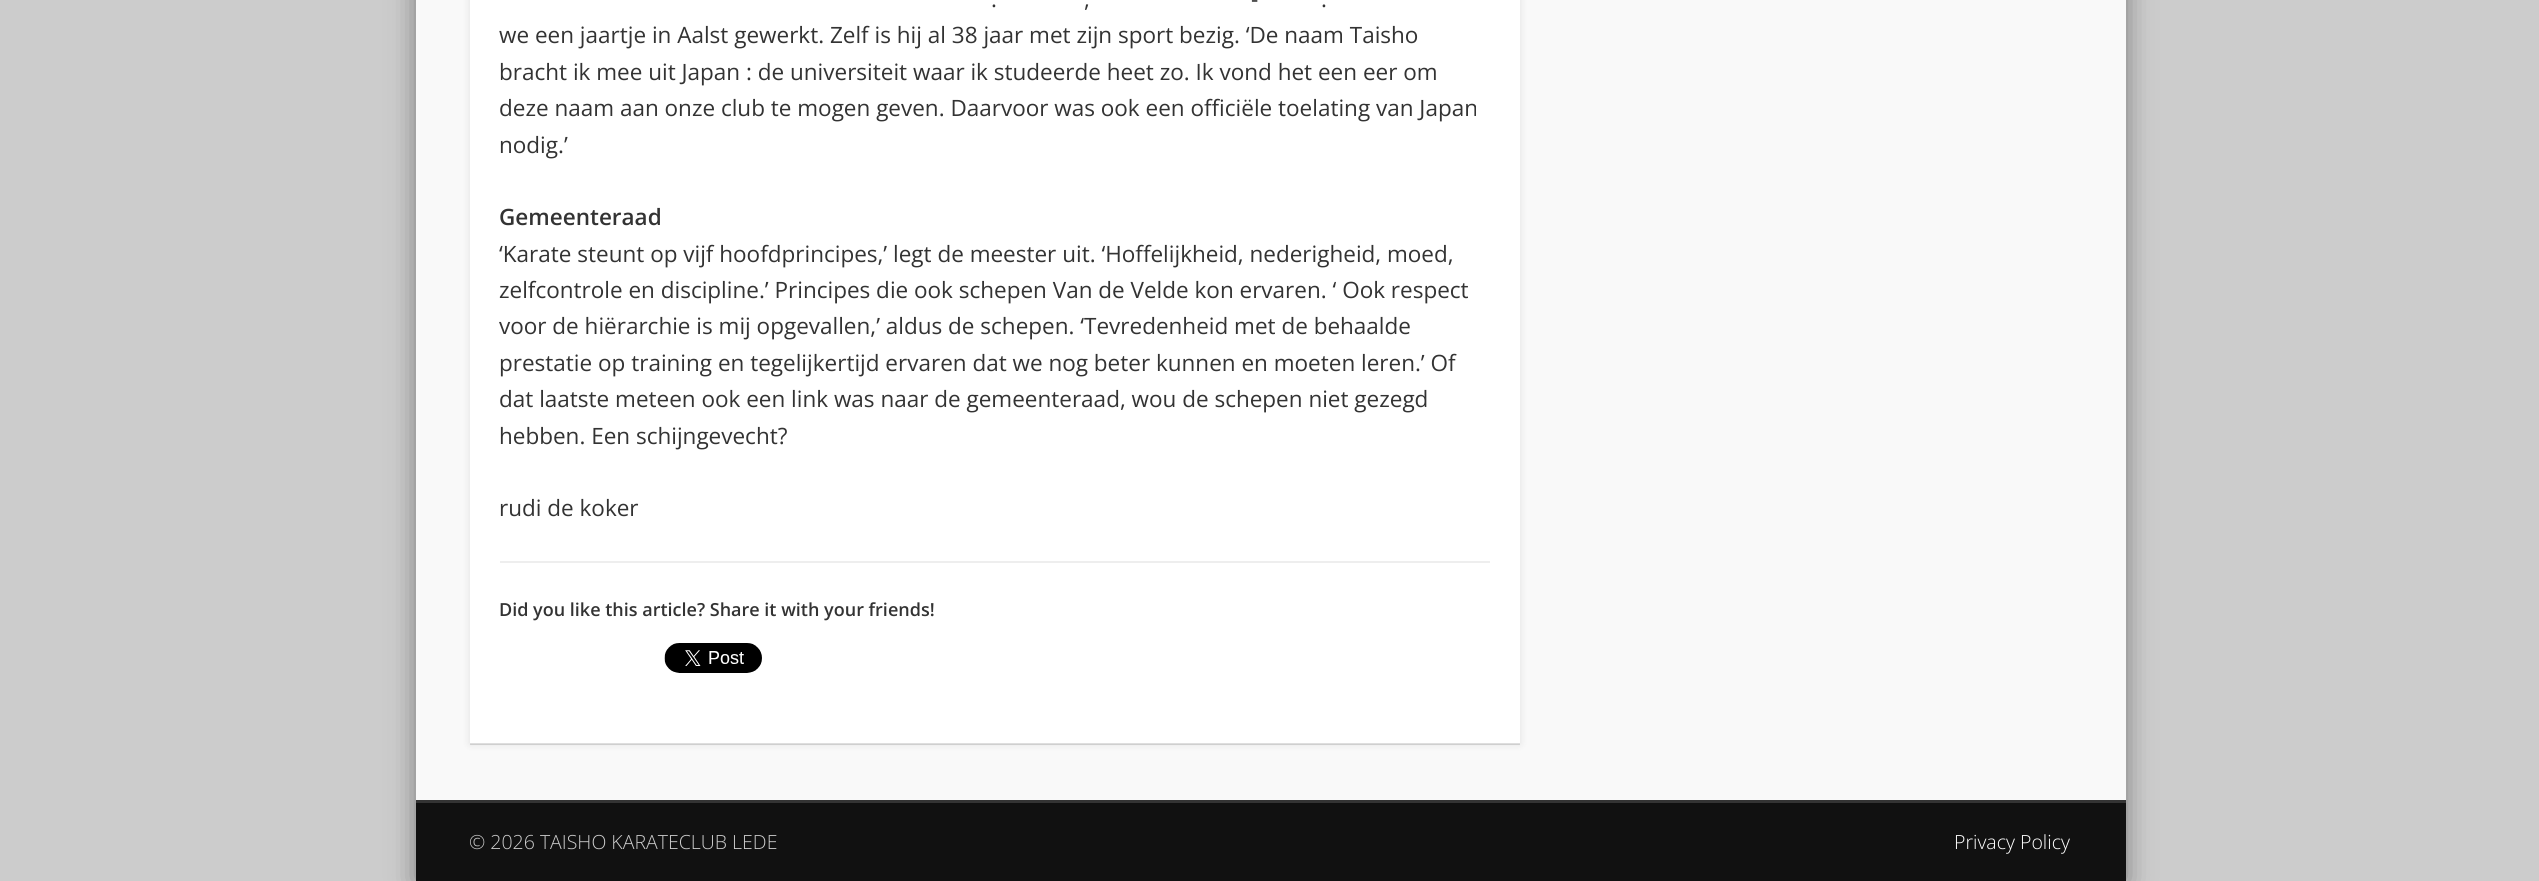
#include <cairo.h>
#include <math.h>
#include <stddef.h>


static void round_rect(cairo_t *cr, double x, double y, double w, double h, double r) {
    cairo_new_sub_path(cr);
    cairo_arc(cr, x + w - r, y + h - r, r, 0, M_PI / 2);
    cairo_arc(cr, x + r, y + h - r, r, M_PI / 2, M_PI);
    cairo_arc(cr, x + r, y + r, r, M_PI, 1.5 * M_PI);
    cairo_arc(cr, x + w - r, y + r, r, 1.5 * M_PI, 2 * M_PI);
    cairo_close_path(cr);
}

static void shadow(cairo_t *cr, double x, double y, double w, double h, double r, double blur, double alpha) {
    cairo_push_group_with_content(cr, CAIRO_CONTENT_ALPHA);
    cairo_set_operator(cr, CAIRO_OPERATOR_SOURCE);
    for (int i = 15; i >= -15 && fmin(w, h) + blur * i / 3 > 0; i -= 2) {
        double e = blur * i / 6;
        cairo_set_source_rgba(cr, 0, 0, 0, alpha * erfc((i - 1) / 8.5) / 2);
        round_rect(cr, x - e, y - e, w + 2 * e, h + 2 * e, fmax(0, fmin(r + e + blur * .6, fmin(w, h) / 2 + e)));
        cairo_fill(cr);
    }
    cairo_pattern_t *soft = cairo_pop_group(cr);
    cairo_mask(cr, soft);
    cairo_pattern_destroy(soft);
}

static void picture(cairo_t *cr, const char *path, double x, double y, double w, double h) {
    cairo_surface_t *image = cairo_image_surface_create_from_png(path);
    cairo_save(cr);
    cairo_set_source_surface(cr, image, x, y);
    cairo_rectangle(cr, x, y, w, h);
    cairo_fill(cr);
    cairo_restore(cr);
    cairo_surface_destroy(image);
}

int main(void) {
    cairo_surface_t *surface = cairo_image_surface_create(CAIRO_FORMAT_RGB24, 2539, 881);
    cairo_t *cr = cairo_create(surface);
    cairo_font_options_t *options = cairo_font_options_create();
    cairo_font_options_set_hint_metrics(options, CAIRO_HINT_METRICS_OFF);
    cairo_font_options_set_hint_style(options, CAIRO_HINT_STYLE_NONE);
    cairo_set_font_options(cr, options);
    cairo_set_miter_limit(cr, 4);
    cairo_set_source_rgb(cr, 0.8, 0.8, 0.8);
    cairo_paint(cr);
    cairo_set_source_rgb(cr, 0, 0, 0);
    shadow(cr, 416, -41, 1710, 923, 0, 13.5, 0.4);
    cairo_set_source_rgb(cr, 0.973, 0.973, 0.973);
    cairo_rectangle(cr, 416, 0, 1710, 800);
    cairo_fill(cr);
    cairo_set_source_rgb(cr, 0, 0, 0);
    shadow(cr, 470, -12, 1050, 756, 0, 4, 0.1);
    cairo_set_source_rgb(cr, 1, 1, 1);
    cairo_rectangle(cr, 470, 0, 1050, 744);
    cairo_fill(cr);
    cairo_set_source_rgba(cr, 0, 0, 0, 0.13);
    cairo_rectangle(cr, 470, 743, 1050, 2);
    cairo_fill(cr);
    cairo_select_font_face(cr, "Open Sans", CAIRO_FONT_SLANT_NORMAL, CAIRO_FONT_WEIGHT_NORMAL);
    cairo_set_font_size(cr, 22.5);
    cairo_set_source_rgb(cr, 0.2, 0.2, 0.2);
    cairo_move_to(cr, 1251, 7);
    cairo_show_text(cr, "-");
    cairo_move_to(cr, 991, 7);
    cairo_show_text(cr, ".");
    cairo_move_to(cr, 1084, 7);
    cairo_show_text(cr, ",");
    cairo_move_to(cr, 1321, 7);
    cairo_show_text(cr, ".");
    cairo_move_to(cr, 499, 43);
    cairo_show_text(cr, "we een jaartje in Aalst gewerkt. Zelf is hij al 38 jaar met zijn sport bezig. ‘De naam Taisho");
    cairo_move_to(cr, 499, 80);
    cairo_show_text(cr, "bracht ik mee uit Japan : de universiteit waar ik studeerde heet zo. Ik vond het een eer om");
    cairo_move_to(cr, 499, 116);
    cairo_show_text(cr, "deze naam aan onze club te mogen geven. Daarvoor was ook een officiële toelating van Japan");
    cairo_move_to(cr, 499, 153);
    cairo_show_text(cr, "nodig.’");
    cairo_select_font_face(cr, "Open Sans SemiBold", CAIRO_FONT_SLANT_NORMAL, CAIRO_FONT_WEIGHT_NORMAL);
    cairo_move_to(cr, 499, 225);
    cairo_show_text(cr, "Gemeenteraad");
    cairo_select_font_face(cr, "Open Sans", CAIRO_FONT_SLANT_NORMAL, CAIRO_FONT_WEIGHT_NORMAL);
    cairo_move_to(cr, 499, 262);
    cairo_show_text(cr, "‘Karate steunt op vijf hoofdprincipes,’ legt de meester uit. ‘Hoffelijkheid, nederigheid, moed,");
    cairo_move_to(cr, 499, 298);
    cairo_show_text(cr, "zelfcontrole en discipline.’ Principes die ook schepen Van de Velde kon ervaren. ‘ Ook respect");
    cairo_move_to(cr, 499, 334);
    cairo_show_text(cr, "voor de hiërarchie is mij opgevallen,’ aldus de schepen. ‘Tevredenheid met de behaalde");
    cairo_move_to(cr, 499, 371);
    cairo_show_text(cr, "prestatie op training en tegelijkertijd ervaren dat we nog beter kunnen en moeten leren.’ Of");
    cairo_move_to(cr, 499, 407);
    cairo_show_text(cr, "dat laatste meteen ook een link was naar de gemeenteraad, wou de schepen niet gezegd");
    cairo_move_to(cr, 499, 444);
    cairo_show_text(cr, "hebben. Een schijngevecht?");
    cairo_move_to(cr, 499, 516);
    cairo_show_text(cr, "rudi de koker");
    cairo_set_source_rgb(cr, 0.933, 0.933, 0.933);
    cairo_rectangle(cr, 500, 561, 990, 2);
    cairo_fill(cr);
    cairo_select_font_face(cr, "Open Sans SemiBold", CAIRO_FONT_SLANT_NORMAL, CAIRO_FONT_WEIGHT_NORMAL);
    cairo_set_font_size(cr, 18);
    cairo_set_source_rgb(cr, 0.2, 0.2, 0.2);
    cairo_move_to(cr, 499, 616);
    cairo_show_text(cr, "Did you like this article? Share it with your friends!");
    picture(cr, "img1.png", 664, 643, 98, 30);
    cairo_set_source_rgb(cr, 0.204, 0.204, 0.204);
    cairo_rectangle(cr, 416, 800, 1710, 3);
    cairo_fill(cr);
    cairo_set_source_rgb(cr, 0.067, 0.067, 0.067);
    cairo_rectangle(cr, 416, 803, 1710, 78);
    cairo_fill(cr);
    cairo_select_font_face(cr, "Open Sans Light", CAIRO_FONT_SLANT_NORMAL, CAIRO_FONT_WEIGHT_NORMAL);
    cairo_set_font_size(cr, 19.5);
    cairo_set_source_rgb(cr, 0.8, 0.8, 0.8);
    cairo_move_to(cr, 469, 849);
    cairo_show_text(cr, "© 2026 TAISHO KARATECLUB LEDE");
    cairo_set_source_rgb(cr, 1, 1, 1);
    cairo_move_to(cr, 1954, 849);
    cairo_show_text(cr, "Privacy Policy");
    cairo_surface_write_to_png(surface, "page.png");
    cairo_font_options_destroy(options);
    cairo_destroy(cr);
    cairo_surface_destroy(surface);
    return 0;
}
